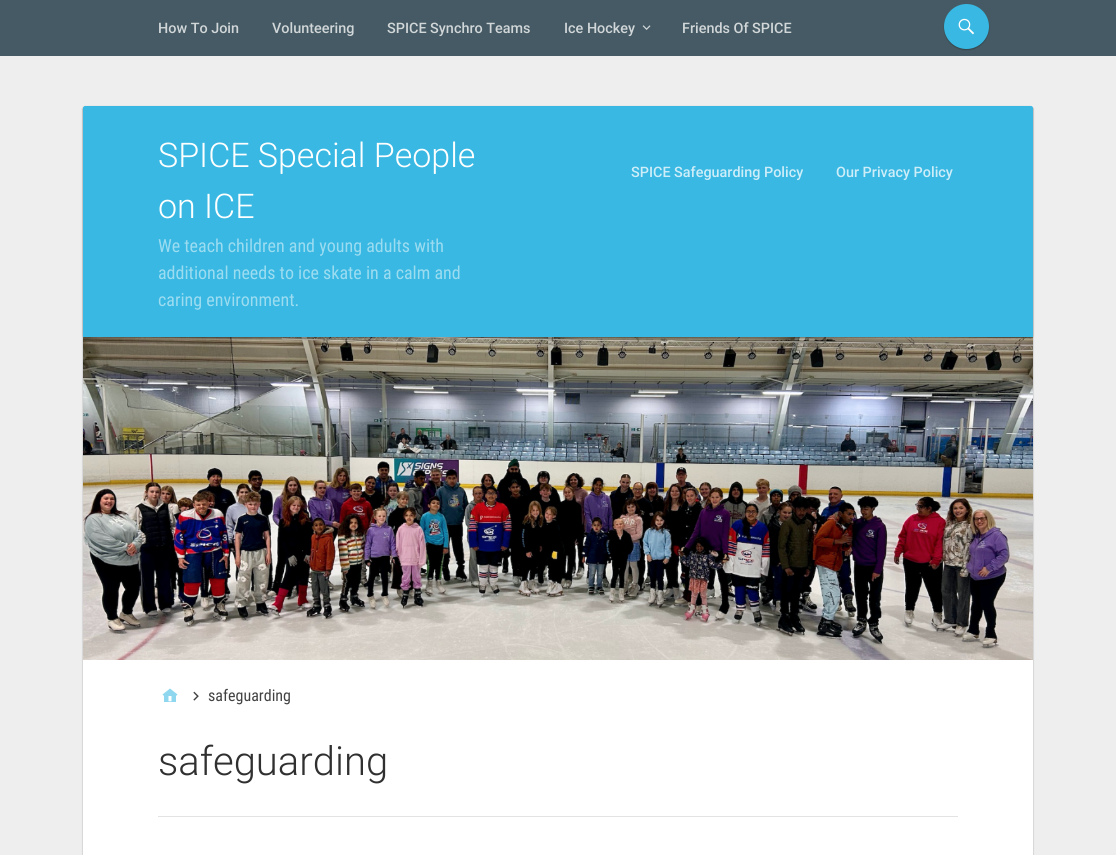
#include <cairo.h>
#include <math.h>
#include <stddef.h>


static void round_rect(cairo_t *cr, double x, double y, double w, double h, double r) {
    cairo_new_sub_path(cr);
    cairo_arc(cr, x + w - r, y + h - r, r, 0, M_PI / 2);
    cairo_arc(cr, x + r, y + h - r, r, M_PI / 2, M_PI);
    cairo_arc(cr, x + r, y + r, r, M_PI, 1.5 * M_PI);
    cairo_arc(cr, x + w - r, y + r, r, 1.5 * M_PI, 2 * M_PI);
    cairo_close_path(cr);
}

static void shadow(cairo_t *cr, double x, double y, double w, double h, double r, double blur, double alpha) {
    cairo_push_group_with_content(cr, CAIRO_CONTENT_ALPHA);
    cairo_set_operator(cr, CAIRO_OPERATOR_SOURCE);
    for (int i = 15; i >= -15 && fmin(w, h) + blur * i / 3 > 0; i -= 2) {
        double e = blur * i / 6;
        cairo_set_source_rgba(cr, 0, 0, 0, alpha * erfc((i - 1) / 8.5) / 2);
        round_rect(cr, x - e, y - e, w + 2 * e, h + 2 * e, fmax(0, fmin(r + e + blur * .6, fmin(w, h) / 2 + e)));
        cairo_fill(cr);
    }
    cairo_pattern_t *soft = cairo_pop_group(cr);
    cairo_mask(cr, soft);
    cairo_pattern_destroy(soft);
}

static void picture(cairo_t *cr, const char *path, double x, double y, double w, double h) {
    cairo_surface_t *image = cairo_image_surface_create_from_png(path);
    cairo_save(cr);
    cairo_set_source_surface(cr, image, x, y);
    cairo_rectangle(cr, x, y, w, h);
    cairo_fill(cr);
    cairo_restore(cr);
    cairo_surface_destroy(image);
}

int main(void) {
    cairo_surface_t *surface = cairo_image_surface_create(CAIRO_FORMAT_RGB24, 1116, 855);
    cairo_t *cr = cairo_create(surface);
    cairo_font_options_t *options = cairo_font_options_create();
    cairo_font_options_set_hint_metrics(options, CAIRO_HINT_METRICS_OFF);
    cairo_font_options_set_hint_style(options, CAIRO_HINT_STYLE_NONE);
    cairo_set_font_options(cr, options);
    cairo_set_miter_limit(cr, 4);
    cairo_set_source_rgb(cr, 0.933, 0.933, 0.933);
    cairo_paint(cr);
    cairo_set_source_rgb(cr, 0.271, 0.353, 0.392);
    cairo_rectangle(cr, 0, 0, 1116, 56);
    cairo_fill(cr);
    cairo_select_font_face(cr, "Roboto Medium", CAIRO_FONT_SLANT_NORMAL, CAIRO_FONT_WEIGHT_NORMAL);
    cairo_set_font_size(cr, 14.4);
    cairo_set_source_rgb(cr, 0.82, 0.839, 0.847);
    cairo_move_to(cr, 158, 33);
    cairo_show_text(cr, "How To Join");
    cairo_move_to(cr, 272, 33);
    cairo_show_text(cr, "Volunteering");
    cairo_move_to(cr, 387, 33);
    cairo_show_text(cr, "SPICE Synchro Teams");
    cairo_move_to(cr, 564, 33);
    cairo_show_text(cr, "Ice Hockey");
    picture(cr, "img1.png", 642, 25, 9, 5);
    cairo_move_to(cr, 682, 33);
    cairo_show_text(cr, "Friends Of SPICE");
    cairo_set_source_rgb(cr, 0, 0, 0);
    shadow(cr, 944, 5, 45, 45, 22.5, 0.5, 0.24);
    cairo_set_source_rgb(cr, 0.22, 0.722, 0.886);
    cairo_arc(cr, 966.5, 26.5, 22.5, 0, 2 * M_PI);
    cairo_fill(cr);
    picture(cr, "img2.png", 958, 18, 17, 17);
    cairo_set_source_rgb(cr, 0, 0, 0);
    shadow(cr, 83, 107, 950, 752, 2, 0.5, 0.24);
    shadow(cr, 83, 107, 950, 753, 2, 1, 0.12);
    cairo_set_source_rgb(cr, 1, 1, 1);
    round_rect(cr, 83, 106, 950, 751, 2);
    cairo_fill(cr);
    picture(cr, "img3.png", 83, 337, 950, 323);
    cairo_set_source_rgb(cr, 0, 0, 0);
    shadow(cr, 83, 107, 950, 231, 2, 0.5, 0.24);
    shadow(cr, 83, 107, 950, 231, 2, 1, 0.12);
    cairo_set_source_rgb(cr, 0.22, 0.722, 0.886);
    cairo_new_path(cr);
    cairo_move_to(cr, 85, 106);
    cairo_line_to(cr, 1031, 106);
    cairo_curve_to(cr, 1032, 106, 1033, 107, 1033, 108);
    cairo_line_to(cr, 1033, 337);
    cairo_line_to(cr, 83, 337);
    cairo_line_to(cr, 83, 108);
    cairo_curve_to(cr, 83, 107, 84, 106, 85, 106);
    cairo_close_path(cr);
    cairo_fill(cr);
    cairo_select_font_face(cr, "Roboto Light", CAIRO_FONT_SLANT_NORMAL, CAIRO_FONT_WEIGHT_NORMAL);
    cairo_set_font_size(cr, 34);
    cairo_set_source_rgb(cr, 1, 1, 1);
    cairo_move_to(cr, 158, 167);
    cairo_show_text(cr, "SPICE Special People");
    cairo_move_to(cr, 158, 218);
    cairo_show_text(cr, "on ICE");
    cairo_select_font_face(cr, "Roboto Condensed", CAIRO_FONT_SLANT_NORMAL, CAIRO_FONT_WEIGHT_NORMAL);
    cairo_set_font_size(cr, 18);
    cairo_set_source_rgb(cr, 0.612, 0.863, 0.945);
    cairo_move_to(cr, 158, 252);
    cairo_show_text(cr, "We teach children and young adults with");
    cairo_move_to(cr, 158, 279);
    cairo_show_text(cr, "additional needs to ice skate in a calm and");
    cairo_move_to(cr, 158, 306);
    cairo_show_text(cr, "caring environment.");
    cairo_select_font_face(cr, "Roboto Medium", CAIRO_FONT_SLANT_NORMAL, CAIRO_FONT_WEIGHT_NORMAL);
    cairo_set_font_size(cr, 14.4);
    cairo_set_source_rgb(cr, 0.804, 0.929, 0.973);
    cairo_move_to(cr, 631, 177);
    cairo_show_text(cr, "SPICE Safeguarding Policy");
    cairo_move_to(cr, 836, 177);
    cairo_show_text(cr, "Our Privacy Policy");
    picture(cr, "img4.png", 162, 688, 16, 14);
    picture(cr, "img5.png", 193, 691, 6, 10);
    cairo_select_font_face(cr, "Roboto Condensed", CAIRO_FONT_SLANT_NORMAL, CAIRO_FONT_WEIGHT_NORMAL);
    cairo_set_font_size(cr, 16);
    cairo_set_source_rgb(cr, 0.259, 0.259, 0.259);
    cairo_move_to(cr, 208, 701);
    cairo_show_text(cr, "safeguarding");
    cairo_set_source_rgb(cr, 0.89, 0.89, 0.89);
    cairo_rectangle(cr, 158, 816, 800, 1);
    cairo_fill(cr);
    cairo_select_font_face(cr, "Roboto Light", CAIRO_FONT_SLANT_NORMAL, CAIRO_FONT_WEIGHT_NORMAL);
    cairo_set_font_size(cr, 40);
    cairo_set_source_rgb(cr, 0.188, 0.188, 0.188);
    cairo_move_to(cr, 158, 775);
    cairo_show_text(cr, "safeguarding");
    cairo_surface_write_to_png(surface, "page.png");
    cairo_font_options_destroy(options);
    cairo_destroy(cr);
    cairo_surface_destroy(surface);
    return 0;
}
